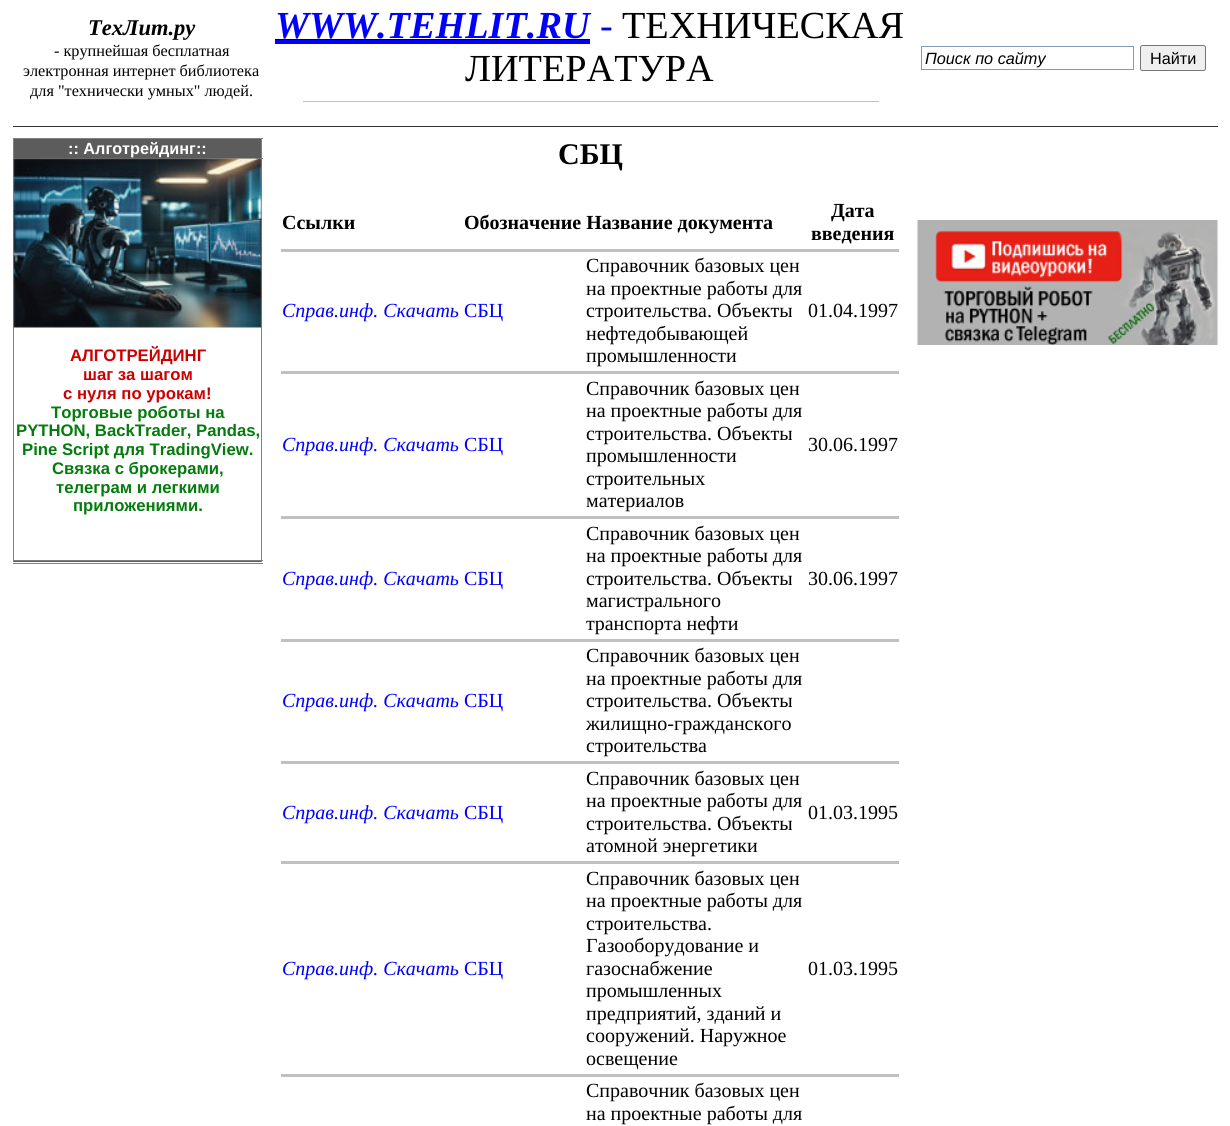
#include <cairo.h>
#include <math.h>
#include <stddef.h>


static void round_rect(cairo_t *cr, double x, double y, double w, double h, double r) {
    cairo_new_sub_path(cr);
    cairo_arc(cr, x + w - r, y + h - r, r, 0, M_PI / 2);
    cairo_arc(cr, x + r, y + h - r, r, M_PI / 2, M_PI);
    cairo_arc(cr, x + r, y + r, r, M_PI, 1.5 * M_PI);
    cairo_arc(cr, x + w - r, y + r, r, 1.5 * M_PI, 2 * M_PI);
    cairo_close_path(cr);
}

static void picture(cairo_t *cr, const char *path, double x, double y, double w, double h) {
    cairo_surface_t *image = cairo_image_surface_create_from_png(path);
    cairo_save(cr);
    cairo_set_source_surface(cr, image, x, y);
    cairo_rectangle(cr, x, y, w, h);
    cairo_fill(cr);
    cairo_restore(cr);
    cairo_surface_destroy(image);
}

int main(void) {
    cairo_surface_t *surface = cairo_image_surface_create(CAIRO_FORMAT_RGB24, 1230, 1126);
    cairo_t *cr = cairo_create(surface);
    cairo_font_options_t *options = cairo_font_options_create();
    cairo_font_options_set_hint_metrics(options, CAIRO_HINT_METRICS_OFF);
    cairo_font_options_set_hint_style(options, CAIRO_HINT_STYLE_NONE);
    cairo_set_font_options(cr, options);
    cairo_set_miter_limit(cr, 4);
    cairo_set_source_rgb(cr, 1, 1, 1);
    cairo_paint(cr);
    cairo_select_font_face(cr, "Liberation Serif", CAIRO_FONT_SLANT_ITALIC, CAIRO_FONT_WEIGHT_BOLD);
    cairo_set_font_size(cr, 22.5);
    cairo_set_source_rgb(cr, 0, 0, 0);
    cairo_move_to(cr, 88, 35);
    cairo_show_text(cr, "ТехЛит.ру");
    cairo_select_font_face(cr, "Liberation Serif", CAIRO_FONT_SLANT_NORMAL, CAIRO_FONT_WEIGHT_NORMAL);
    cairo_set_font_size(cr, 16.25);
    cairo_move_to(cr, 54, 56);
    cairo_show_text(cr, "- крупнейшая бесплатная");
    cairo_move_to(cr, 23, 76);
    cairo_show_text(cr, "электронная интернет библиотека");
    cairo_move_to(cr, 30, 96);
    cairo_show_text(cr, "для \"технически умных\" людей.");
    cairo_select_font_face(cr, "Liberation Serif", CAIRO_FONT_SLANT_ITALIC, CAIRO_FONT_WEIGHT_BOLD);
    cairo_set_font_size(cr, 38.25);
    cairo_set_source_rgb(cr, 0, 0, 1);
    cairo_move_to(cr, 275, 38);
    cairo_show_text(cr, "WWW.TEHLIT.RU");
    cairo_rectangle(cr, 275, 40, 315, 4);
    cairo_fill(cr);
    cairo_set_source_rgb(cr, 0, 0, 0);
    cairo_rectangle(cr, 275, 39, 315, 1);
    cairo_fill(cr);
    cairo_select_font_face(cr, "Liberation Serif", CAIRO_FONT_SLANT_NORMAL, CAIRO_FONT_WEIGHT_NORMAL);
    cairo_set_source_rgb(cr, 0, 0, 1);
    cairo_move_to(cr, 600, 38);
    cairo_show_text(cr, "-");
    cairo_set_source_rgb(cr, 0, 0, 0);
    cairo_move_to(cr, 622, 38);
    cairo_show_text(cr, "ТЕХНИЧЕСКАЯ");
    cairo_move_to(cr, 465, 81);
    cairo_show_text(cr, "ЛИТЕРАТУРА");
    cairo_set_source_rgb(cr, 0.753, 0.753, 0.753);
    cairo_rectangle(cr, 303, 101, 576, 1);
    cairo_fill(cr);
    cairo_rectangle(cr, 921.5, 46.5, 212, 23);
    cairo_set_source_rgb(cr, 0.498, 0.616, 0.725);
    cairo_set_line_width(cr, 1);
    cairo_stroke(cr);
    cairo_select_font_face(cr, "Liberation Sans", CAIRO_FONT_SLANT_ITALIC, CAIRO_FONT_WEIGHT_NORMAL);
    cairo_set_font_size(cr, 16.25);
    cairo_set_source_rgb(cr, 0, 0, 0);
    cairo_move_to(cr, 925, 64);
    cairo_show_text(cr, "Поиск по сайту");
    cairo_set_source_rgb(cr, 0.937, 0.937, 0.937);
    round_rect(cr, 1140.5, 45.5, 65, 25, 2);
    cairo_fill_preserve(cr);
    cairo_set_source_rgb(cr, 0.463, 0.463, 0.463);
    cairo_stroke(cr);
    cairo_select_font_face(cr, "Liberation Sans", CAIRO_FONT_SLANT_NORMAL, CAIRO_FONT_WEIGHT_NORMAL);
    cairo_set_source_rgb(cr, 0, 0, 0);
    cairo_move_to(cr, 1150, 64);
    cairo_show_text(cr, "Найти");
    cairo_set_source_rgb(cr, 0.2, 0.2, 0.2);
    cairo_rectangle(cr, 13, 126, 1205, 1);
    cairo_fill(cr);
    cairo_set_source_rgb(cr, 0.502, 0.502, 0.502);
    cairo_rectangle(cr, 13, 138, 250, 1);
    cairo_fill(cr);
    cairo_rectangle(cr, 13, 139, 1, 19);
    cairo_fill(cr);
    cairo_set_source_rgb(cr, 0.361, 0.361, 0.361);
    cairo_rectangle(cr, 14, 139, 247, 19);
    cairo_fill(cr);
    cairo_select_font_face(cr, "Liberation Sans", CAIRO_FONT_SLANT_NORMAL, CAIRO_FONT_WEIGHT_BOLD);
    cairo_set_source_rgb(cr, 1, 1, 1);
    cairo_move_to(cr, 68, 154);
    cairo_show_text(cr, ":: Алготрейдинг::");
    cairo_set_source_rgb(cr, 0.502, 0.502, 0.502);
    cairo_rectangle(cr, 261, 139, 1, 19);
    cairo_fill(cr);
    cairo_rectangle(cr, 13, 158, 250, 1);
    cairo_fill(cr);
    cairo_rectangle(cr, 13, 159, 1, 401);
    cairo_fill(cr);
    cairo_rectangle(cr, 261, 159, 1, 401);
    cairo_fill(cr);
    picture(cr, "img1.png", 13, 158, 249, 170);
    cairo_set_font_size(cr, 16.7);
    cairo_set_source_rgb(cr, 0.8, 0, 0);
    cairo_move_to(cr, 70, 361);
    cairo_show_text(cr, "АЛГОТРЕЙДИНГ");
    cairo_move_to(cr, 83, 380);
    cairo_show_text(cr, "шаг за шагом");
    cairo_move_to(cr, 63, 399);
    cairo_show_text(cr, "с нуля по урокам!");
    cairo_set_source_rgb(cr, 0.016, 0.482, 0.051);
    cairo_move_to(cr, 51, 418);
    cairo_show_text(cr, "Торговые роботы на");
    cairo_move_to(cr, 16, 436);
    cairo_show_text(cr, "PYTHON, BackTrader, Pandas,");
    cairo_move_to(cr, 22, 455);
    cairo_show_text(cr, "Pine Script для TradingView.");
    cairo_move_to(cr, 52, 474);
    cairo_show_text(cr, "Связка с брокерами,");
    cairo_move_to(cr, 56, 493);
    cairo_show_text(cr, "телеграм и легкими");
    cairo_move_to(cr, 73, 511);
    cairo_show_text(cr, "приложениями.");
    cairo_set_source_rgb(cr, 0.502, 0.502, 0.502);
    cairo_rectangle(cr, 13, 560, 250, 1);
    cairo_fill(cr);
    cairo_rectangle(cr, 13, 561, 1, 1);
    cairo_fill(cr);
    cairo_set_source_rgb(cr, 0.361, 0.361, 0.361);
    cairo_rectangle(cr, 14, 561, 247, 1);
    cairo_fill(cr);
    cairo_set_source_rgb(cr, 0.502, 0.502, 0.502);
    cairo_rectangle(cr, 261, 561, 1, 1);
    cairo_fill(cr);
    cairo_rectangle(cr, 13, 563, 250, 1);
    cairo_fill(cr);
    cairo_select_font_face(cr, "Liberation Serif", CAIRO_FONT_SLANT_NORMAL, CAIRO_FONT_WEIGHT_BOLD);
    cairo_set_font_size(cr, 30);
    cairo_set_source_rgb(cr, 0, 0, 0);
    cairo_move_to(cr, 558, 164);
    cairo_show_text(cr, "СБЦ");
    cairo_set_font_size(cr, 20);
    cairo_move_to(cr, 282, 229);
    cairo_show_text(cr, "Ссылки");
    cairo_move_to(cr, 464, 229);
    cairo_show_text(cr, "Обозначение Название документа");
    cairo_move_to(cr, 831, 217);
    cairo_show_text(cr, "Дата");
    cairo_move_to(cr, 811, 240);
    cairo_show_text(cr, "введения");
    cairo_set_source_rgb(cr, 0.753, 0.753, 0.753);
    cairo_rectangle(cr, 281, 249, 618, 3);
    cairo_fill(cr);
    cairo_select_font_face(cr, "Liberation Serif", CAIRO_FONT_SLANT_ITALIC, CAIRO_FONT_WEIGHT_NORMAL);
    cairo_set_source_rgb(cr, 0, 0, 1);
    cairo_move_to(cr, 282, 317);
    cairo_show_text(cr, "Справ.инф. Скачать");
    cairo_select_font_face(cr, "Liberation Serif", CAIRO_FONT_SLANT_NORMAL, CAIRO_FONT_WEIGHT_NORMAL);
    cairo_move_to(cr, 464, 317);
    cairo_show_text(cr, "СБЦ");
    cairo_set_source_rgb(cr, 0, 0, 0);
    cairo_move_to(cr, 586, 272);
    cairo_show_text(cr, "Справочник базовых цен");
    cairo_move_to(cr, 586, 295);
    cairo_show_text(cr, "на проектные работы для");
    cairo_move_to(cr, 586, 317);
    cairo_show_text(cr, "строительства. Объекты");
    cairo_move_to(cr, 586, 340);
    cairo_show_text(cr, "нефтедобывающей");
    cairo_move_to(cr, 586, 362);
    cairo_show_text(cr, "промышленности");
    cairo_move_to(cr, 808, 317);
    cairo_show_text(cr, "01.04.1997");
    cairo_set_source_rgb(cr, 0.753, 0.753, 0.753);
    cairo_rectangle(cr, 281, 371, 618, 3);
    cairo_fill(cr);
    cairo_select_font_face(cr, "Liberation Serif", CAIRO_FONT_SLANT_ITALIC, CAIRO_FONT_WEIGHT_NORMAL);
    cairo_set_source_rgb(cr, 0, 0, 1);
    cairo_move_to(cr, 282, 451);
    cairo_show_text(cr, "Справ.инф. Скачать");
    cairo_select_font_face(cr, "Liberation Serif", CAIRO_FONT_SLANT_NORMAL, CAIRO_FONT_WEIGHT_NORMAL);
    cairo_move_to(cr, 464, 451);
    cairo_show_text(cr, "СБЦ");
    cairo_set_source_rgb(cr, 0, 0, 0);
    cairo_move_to(cr, 586, 395);
    cairo_show_text(cr, "Справочник базовых цен");
    cairo_move_to(cr, 586, 417);
    cairo_show_text(cr, "на проектные работы для");
    cairo_move_to(cr, 586, 440);
    cairo_show_text(cr, "строительства. Объекты");
    cairo_move_to(cr, 586, 462);
    cairo_show_text(cr, "промышленности");
    cairo_move_to(cr, 586, 485);
    cairo_show_text(cr, "строительных");
    cairo_move_to(cr, 586, 507);
    cairo_show_text(cr, "материалов");
    cairo_move_to(cr, 808, 451);
    cairo_show_text(cr, "30.06.1997");
    cairo_set_source_rgb(cr, 0.753, 0.753, 0.753);
    cairo_rectangle(cr, 281, 516, 618, 3);
    cairo_fill(cr);
    cairo_select_font_face(cr, "Liberation Serif", CAIRO_FONT_SLANT_ITALIC, CAIRO_FONT_WEIGHT_NORMAL);
    cairo_set_source_rgb(cr, 0, 0, 1);
    cairo_move_to(cr, 282, 585);
    cairo_show_text(cr, "Справ.инф. Скачать");
    cairo_select_font_face(cr, "Liberation Serif", CAIRO_FONT_SLANT_NORMAL, CAIRO_FONT_WEIGHT_NORMAL);
    cairo_move_to(cr, 464, 585);
    cairo_show_text(cr, "СБЦ");
    cairo_set_source_rgb(cr, 0, 0, 0);
    cairo_move_to(cr, 586, 540);
    cairo_show_text(cr, "Справочник базовых цен");
    cairo_move_to(cr, 586, 562);
    cairo_show_text(cr, "на проектные работы для");
    cairo_move_to(cr, 586, 585);
    cairo_show_text(cr, "строительства. Объекты");
    cairo_move_to(cr, 586, 607);
    cairo_show_text(cr, "магистрального");
    cairo_move_to(cr, 586, 630);
    cairo_show_text(cr, "транспорта нефти");
    cairo_move_to(cr, 808, 585);
    cairo_show_text(cr, "30.06.1997");
    cairo_set_source_rgb(cr, 0.753, 0.753, 0.753);
    cairo_rectangle(cr, 281, 639, 618, 3);
    cairo_fill(cr);
    cairo_select_font_face(cr, "Liberation Serif", CAIRO_FONT_SLANT_ITALIC, CAIRO_FONT_WEIGHT_NORMAL);
    cairo_set_source_rgb(cr, 0, 0, 1);
    cairo_move_to(cr, 282, 707);
    cairo_show_text(cr, "Справ.инф. Скачать");
    cairo_select_font_face(cr, "Liberation Serif", CAIRO_FONT_SLANT_NORMAL, CAIRO_FONT_WEIGHT_NORMAL);
    cairo_move_to(cr, 464, 707);
    cairo_show_text(cr, "СБЦ");
    cairo_set_source_rgb(cr, 0, 0, 0);
    cairo_move_to(cr, 586, 662);
    cairo_show_text(cr, "Справочник базовых цен");
    cairo_move_to(cr, 586, 685);
    cairo_show_text(cr, "на проектные работы для");
    cairo_move_to(cr, 586, 707);
    cairo_show_text(cr, "строительства. Объекты");
    cairo_move_to(cr, 586, 730);
    cairo_show_text(cr, "жилищно-гражданского");
    cairo_move_to(cr, 586, 752);
    cairo_show_text(cr, "строительства");
    cairo_set_source_rgb(cr, 0.753, 0.753, 0.753);
    cairo_rectangle(cr, 281, 761, 618, 3);
    cairo_fill(cr);
    cairo_select_font_face(cr, "Liberation Serif", CAIRO_FONT_SLANT_ITALIC, CAIRO_FONT_WEIGHT_NORMAL);
    cairo_set_source_rgb(cr, 0, 0, 1);
    cairo_move_to(cr, 282, 819);
    cairo_show_text(cr, "Справ.инф. Скачать");
    cairo_select_font_face(cr, "Liberation Serif", CAIRO_FONT_SLANT_NORMAL, CAIRO_FONT_WEIGHT_NORMAL);
    cairo_move_to(cr, 464, 819);
    cairo_show_text(cr, "СБЦ");
    cairo_set_source_rgb(cr, 0, 0, 0);
    cairo_move_to(cr, 586, 785);
    cairo_show_text(cr, "Справочник базовых цен");
    cairo_move_to(cr, 586, 807);
    cairo_show_text(cr, "на проектные работы для");
    cairo_move_to(cr, 586, 830);
    cairo_show_text(cr, "строительства. Объекты");
    cairo_move_to(cr, 586, 852);
    cairo_show_text(cr, "атомной энергетики");
    cairo_move_to(cr, 808, 819);
    cairo_show_text(cr, "01.03.1995");
    cairo_set_source_rgb(cr, 0.753, 0.753, 0.753);
    cairo_rectangle(cr, 281, 861, 618, 3);
    cairo_fill(cr);
    cairo_select_font_face(cr, "Liberation Serif", CAIRO_FONT_SLANT_ITALIC, CAIRO_FONT_WEIGHT_NORMAL);
    cairo_set_source_rgb(cr, 0, 0, 1);
    cairo_move_to(cr, 282, 975);
    cairo_show_text(cr, "Справ.инф. Скачать");
    cairo_select_font_face(cr, "Liberation Serif", CAIRO_FONT_SLANT_NORMAL, CAIRO_FONT_WEIGHT_NORMAL);
    cairo_move_to(cr, 464, 975);
    cairo_show_text(cr, "СБЦ");
    cairo_set_source_rgb(cr, 0, 0, 0);
    cairo_move_to(cr, 586, 885);
    cairo_show_text(cr, "Справочник базовых цен");
    cairo_move_to(cr, 586, 907);
    cairo_show_text(cr, "на проектные работы для");
    cairo_move_to(cr, 586, 930);
    cairo_show_text(cr, "строительства.");
    cairo_move_to(cr, 586, 952);
    cairo_show_text(cr, "Газооборудование и");
    cairo_move_to(cr, 586, 975);
    cairo_show_text(cr, "газоснабжение");
    cairo_move_to(cr, 586, 997);
    cairo_show_text(cr, "промышленных");
    cairo_move_to(cr, 586, 1020);
    cairo_show_text(cr, "предприятий, зданий и");
    cairo_move_to(cr, 586, 1042);
    cairo_show_text(cr, "сооружений. Наружное");
    cairo_move_to(cr, 586, 1065);
    cairo_show_text(cr, "освещение");
    cairo_move_to(cr, 808, 975);
    cairo_show_text(cr, "01.03.1995");
    cairo_set_source_rgb(cr, 0.753, 0.753, 0.753);
    cairo_rectangle(cr, 281, 1074, 618, 3);
    cairo_fill(cr);
    cairo_set_source_rgb(cr, 0, 0, 0);
    cairo_move_to(cr, 586, 1097);
    cairo_show_text(cr, "Справочник базовых цен");
    cairo_move_to(cr, 586, 1120);
    cairo_show_text(cr, "на проектные работы для");
    picture(cr, "img2.png", 917, 220, 301, 125);
    cairo_surface_write_to_png(surface, "page.png");
    cairo_font_options_destroy(options);
    cairo_destroy(cr);
    cairo_surface_destroy(surface);
    return 0;
}
